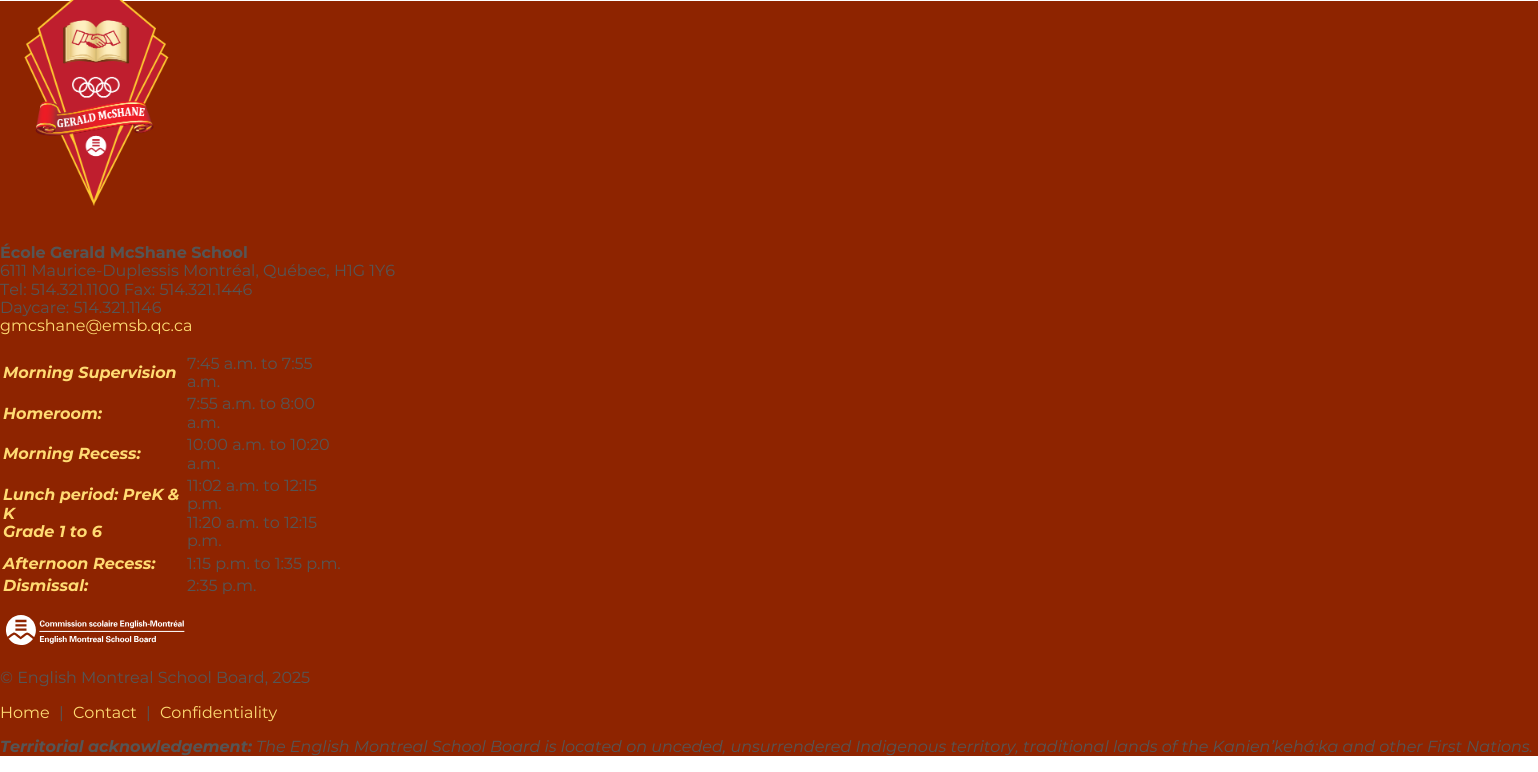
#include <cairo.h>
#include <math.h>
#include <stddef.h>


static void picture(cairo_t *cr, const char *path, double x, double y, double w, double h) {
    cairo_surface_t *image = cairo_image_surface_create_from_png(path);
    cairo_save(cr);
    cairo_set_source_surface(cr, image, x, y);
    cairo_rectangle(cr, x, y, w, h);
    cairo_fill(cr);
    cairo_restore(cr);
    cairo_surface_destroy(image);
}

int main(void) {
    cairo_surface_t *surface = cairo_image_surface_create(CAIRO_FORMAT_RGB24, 1538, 772);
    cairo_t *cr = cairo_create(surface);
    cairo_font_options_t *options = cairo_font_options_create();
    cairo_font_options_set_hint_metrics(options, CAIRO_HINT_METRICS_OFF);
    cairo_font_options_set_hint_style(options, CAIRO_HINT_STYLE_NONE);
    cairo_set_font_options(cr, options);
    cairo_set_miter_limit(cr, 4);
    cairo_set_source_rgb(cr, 1, 1, 1);
    cairo_paint(cr);
    cairo_set_source_rgb(cr, 0.557, 0.141, 0);
    cairo_rectangle(cr, 0, 1, 1538, 755);
    cairo_fill(cr);
    picture(cr, "img1.png", 24, 0, 145, 206);
    cairo_select_font_face(cr, "Montserrat", CAIRO_FONT_SLANT_NORMAL, CAIRO_FONT_WEIGHT_BOLD);
    cairo_set_font_size(cr, 16);
    cairo_set_source_rgb(cr, 0.333, 0.333, 0.333);
    cairo_move_to(cr, 0, 258);
    cairo_show_text(cr, "École Gerald McShane School");
    cairo_select_font_face(cr, "Montserrat", CAIRO_FONT_SLANT_NORMAL, CAIRO_FONT_WEIGHT_NORMAL);
    cairo_move_to(cr, 0, 276);
    cairo_show_text(cr, "6111 Maurice-Duplessis Montréal, Québec, H1G 1Y6");
    cairo_move_to(cr, 0, 295);
    cairo_show_text(cr, "Tel: 514.321.1100 Fax: 514.321.1446");
    cairo_move_to(cr, 0, 313);
    cairo_show_text(cr, "Daycare: 514.321.1146");
    cairo_set_source_rgb(cr, 1, 0.859, 0.447);
    cairo_move_to(cr, 0, 331);
    cairo_show_text(cr, "gmcshane@emsb.qc.ca");
    cairo_select_font_face(cr, "Montserrat", CAIRO_FONT_SLANT_ITALIC, CAIRO_FONT_WEIGHT_BOLD);
    cairo_move_to(cr, 3, 378);
    cairo_show_text(cr, "Morning Supervision");
    cairo_select_font_face(cr, "Montserrat", CAIRO_FONT_SLANT_NORMAL, CAIRO_FONT_WEIGHT_NORMAL);
    cairo_set_source_rgb(cr, 0.333, 0.333, 0.333);
    cairo_move_to(cr, 187, 369);
    cairo_show_text(cr, "7:45 a.m. to 7:55");
    cairo_move_to(cr, 187, 387);
    cairo_show_text(cr, "a.m.");
    cairo_select_font_face(cr, "Montserrat", CAIRO_FONT_SLANT_ITALIC, CAIRO_FONT_WEIGHT_BOLD);
    cairo_set_source_rgb(cr, 1, 0.859, 0.447);
    cairo_move_to(cr, 3, 419);
    cairo_show_text(cr, "Homeroom:");
    cairo_select_font_face(cr, "Montserrat", CAIRO_FONT_SLANT_NORMAL, CAIRO_FONT_WEIGHT_NORMAL);
    cairo_set_source_rgb(cr, 0.333, 0.333, 0.333);
    cairo_move_to(cr, 187, 409);
    cairo_show_text(cr, "7:55 a.m. to 8:00");
    cairo_move_to(cr, 187, 428);
    cairo_show_text(cr, "a.m.");
    cairo_select_font_face(cr, "Montserrat", CAIRO_FONT_SLANT_ITALIC, CAIRO_FONT_WEIGHT_BOLD);
    cairo_set_source_rgb(cr, 1, 0.859, 0.447);
    cairo_move_to(cr, 3, 459);
    cairo_show_text(cr, "Morning Recess:");
    cairo_select_font_face(cr, "Montserrat", CAIRO_FONT_SLANT_NORMAL, CAIRO_FONT_WEIGHT_NORMAL);
    cairo_set_source_rgb(cr, 0.333, 0.333, 0.333);
    cairo_move_to(cr, 187, 450);
    cairo_show_text(cr, "10:00 a.m. to 10:20");
    cairo_move_to(cr, 187, 469);
    cairo_show_text(cr, "a.m.");
    cairo_select_font_face(cr, "Montserrat", CAIRO_FONT_SLANT_ITALIC, CAIRO_FONT_WEIGHT_BOLD);
    cairo_set_source_rgb(cr, 1, 0.859, 0.447);
    cairo_move_to(cr, 3, 500);
    cairo_show_text(cr, "Lunch period: PreK &");
    cairo_move_to(cr, 3, 519);
    cairo_show_text(cr, "K");
    cairo_move_to(cr, 3, 537);
    cairo_show_text(cr, "Grade 1 to 6");
    cairo_select_font_face(cr, "Montserrat", CAIRO_FONT_SLANT_NORMAL, CAIRO_FONT_WEIGHT_NORMAL);
    cairo_set_source_rgb(cr, 0.333, 0.333, 0.333);
    cairo_move_to(cr, 187, 491);
    cairo_show_text(cr, "11:02 a.m. to 12:15");
    cairo_move_to(cr, 187, 509);
    cairo_show_text(cr, "p.m.");
    cairo_move_to(cr, 187, 528);
    cairo_show_text(cr, "11:20 a.m. to 12:15");
    cairo_move_to(cr, 187, 546);
    cairo_show_text(cr, "p.m.");
    cairo_select_font_face(cr, "Montserrat", CAIRO_FONT_SLANT_ITALIC, CAIRO_FONT_WEIGHT_BOLD);
    cairo_set_source_rgb(cr, 1, 0.859, 0.447);
    cairo_move_to(cr, 3, 569);
    cairo_show_text(cr, "Afternoon Recess:");
    cairo_select_font_face(cr, "Montserrat", CAIRO_FONT_SLANT_NORMAL, CAIRO_FONT_WEIGHT_NORMAL);
    cairo_set_source_rgb(cr, 0.333, 0.333, 0.333);
    cairo_move_to(cr, 187, 569);
    cairo_show_text(cr, "1:15 p.m. to 1:35 p.m.");
    cairo_select_font_face(cr, "Montserrat", CAIRO_FONT_SLANT_ITALIC, CAIRO_FONT_WEIGHT_BOLD);
    cairo_set_source_rgb(cr, 1, 0.859, 0.447);
    cairo_move_to(cr, 3, 591);
    cairo_show_text(cr, "Dismissal:");
    cairo_select_font_face(cr, "Montserrat", CAIRO_FONT_SLANT_NORMAL, CAIRO_FONT_WEIGHT_NORMAL);
    cairo_set_source_rgb(cr, 0.333, 0.333, 0.333);
    cairo_move_to(cr, 187, 591);
    cairo_show_text(cr, "2:35 p.m.");
    picture(cr, "img2.png", 5, 615, 180, 30);
    cairo_move_to(cr, 0, 683);
    cairo_show_text(cr, "© English Montreal School Board, 2025");
    cairo_set_source_rgb(cr, 1, 0.859, 0.447);
    cairo_move_to(cr, 0, 718);
    cairo_show_text(cr, "Home");
    cairo_set_source_rgb(cr, 0.333, 0.333, 0.333);
    cairo_move_to(cr, 59, 718);
    cairo_show_text(cr, "|");
    cairo_set_source_rgb(cr, 1, 0.859, 0.447);
    cairo_move_to(cr, 73, 718);
    cairo_show_text(cr, "Contact");
    cairo_set_source_rgb(cr, 0.333, 0.333, 0.333);
    cairo_move_to(cr, 146, 718);
    cairo_show_text(cr, "|");
    cairo_set_source_rgb(cr, 1, 0.859, 0.447);
    cairo_move_to(cr, 160, 718);
    cairo_show_text(cr, "Confidentiality");
    cairo_select_font_face(cr, "Montserrat", CAIRO_FONT_SLANT_ITALIC, CAIRO_FONT_WEIGHT_BOLD);
    cairo_set_source_rgb(cr, 0.333, 0.333, 0.333);
    cairo_move_to(cr, 0, 752);
    cairo_show_text(cr, "Territorial acknowledgement:");
    cairo_select_font_face(cr, "Montserrat", CAIRO_FONT_SLANT_ITALIC, CAIRO_FONT_WEIGHT_NORMAL);
    cairo_move_to(cr, 256, 752);
    cairo_show_text(cr, "The English Montreal School Board is located on unceded, unsurrendered Indigenous territory, traditional lands of the Kanienʼkehá:ka and other First Nations.");
    cairo_surface_write_to_png(surface, "page.png");
    cairo_font_options_destroy(options);
    cairo_destroy(cr);
    cairo_surface_destroy(surface);
    return 0;
}
